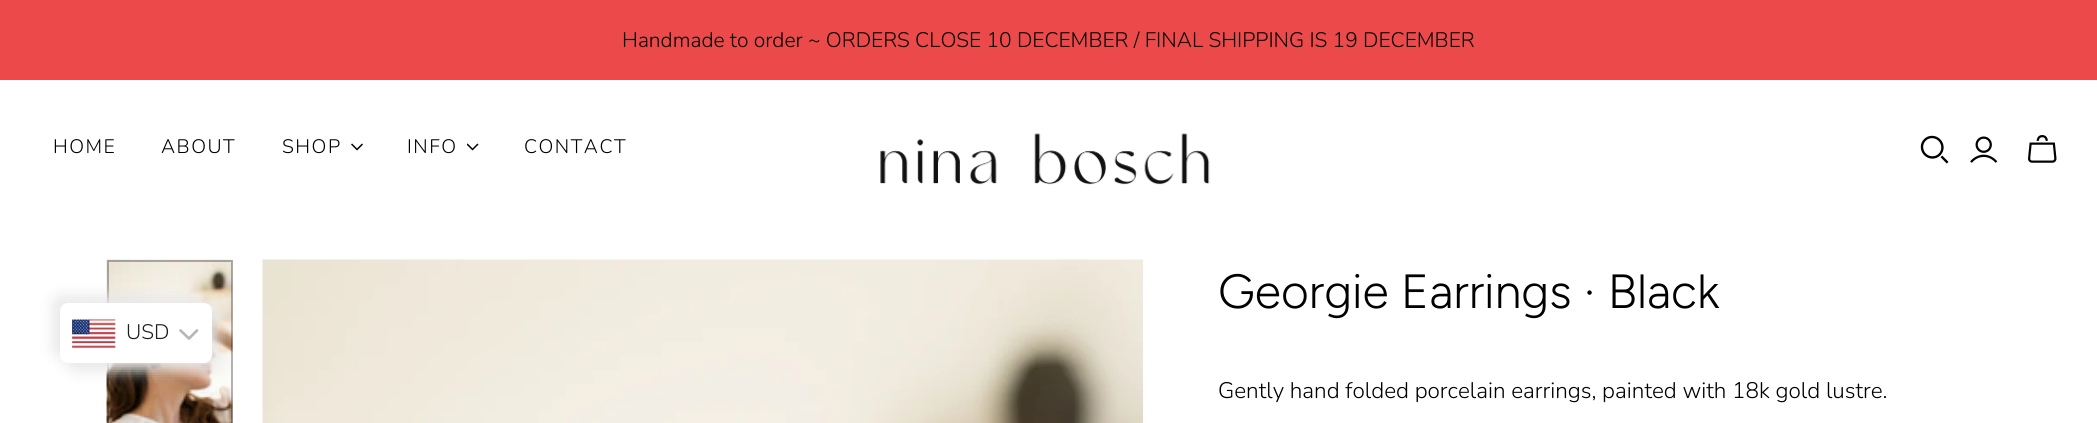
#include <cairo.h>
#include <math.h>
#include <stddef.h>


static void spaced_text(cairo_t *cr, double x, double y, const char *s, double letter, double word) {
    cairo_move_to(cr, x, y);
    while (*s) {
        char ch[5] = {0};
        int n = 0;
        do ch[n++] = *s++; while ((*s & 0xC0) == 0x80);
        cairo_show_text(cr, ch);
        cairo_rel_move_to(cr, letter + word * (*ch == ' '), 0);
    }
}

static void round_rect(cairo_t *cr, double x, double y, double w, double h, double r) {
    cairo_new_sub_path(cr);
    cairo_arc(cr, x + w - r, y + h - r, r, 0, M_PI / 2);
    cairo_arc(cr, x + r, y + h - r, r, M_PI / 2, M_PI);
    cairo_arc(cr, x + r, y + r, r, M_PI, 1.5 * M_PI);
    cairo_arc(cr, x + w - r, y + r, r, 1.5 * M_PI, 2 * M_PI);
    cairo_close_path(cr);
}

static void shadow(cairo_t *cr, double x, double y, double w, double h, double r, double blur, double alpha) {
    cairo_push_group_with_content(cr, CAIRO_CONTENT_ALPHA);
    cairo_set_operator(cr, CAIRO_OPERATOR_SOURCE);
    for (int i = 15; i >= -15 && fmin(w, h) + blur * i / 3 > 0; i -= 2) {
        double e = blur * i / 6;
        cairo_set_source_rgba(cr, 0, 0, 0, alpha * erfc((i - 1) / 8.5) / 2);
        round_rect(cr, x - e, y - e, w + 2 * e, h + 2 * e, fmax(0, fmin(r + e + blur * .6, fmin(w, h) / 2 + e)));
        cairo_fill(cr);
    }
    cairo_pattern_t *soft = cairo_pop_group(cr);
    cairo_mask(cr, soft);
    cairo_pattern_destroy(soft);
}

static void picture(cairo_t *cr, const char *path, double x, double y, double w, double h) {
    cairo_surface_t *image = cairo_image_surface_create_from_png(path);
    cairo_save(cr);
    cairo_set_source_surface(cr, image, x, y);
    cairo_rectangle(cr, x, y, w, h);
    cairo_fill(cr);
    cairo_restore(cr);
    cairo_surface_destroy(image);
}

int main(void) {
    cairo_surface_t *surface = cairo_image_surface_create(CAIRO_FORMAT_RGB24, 2097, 423);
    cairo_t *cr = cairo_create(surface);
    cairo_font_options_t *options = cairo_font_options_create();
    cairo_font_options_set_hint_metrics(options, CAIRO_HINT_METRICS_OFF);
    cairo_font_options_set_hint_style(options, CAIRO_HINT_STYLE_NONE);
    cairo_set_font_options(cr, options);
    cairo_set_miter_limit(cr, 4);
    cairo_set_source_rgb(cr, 1, 1, 1);
    cairo_paint(cr);
    cairo_set_source_rgb(cr, 0.925, 0.29, 0.29);
    cairo_rectangle(cr, 0, 0, 2097, 80);
    cairo_fill(cr);
    cairo_select_font_face(cr, "Nunito Light", CAIRO_FONT_SLANT_NORMAL, CAIRO_FONT_WEIGHT_NORMAL);
    cairo_set_font_size(cr, 21);
    cairo_set_source_rgb(cr, 0, 0, 0);
    cairo_move_to(cr, 622, 47);
    cairo_show_text(cr, "Handmade to order ~ ORDERS CLOSE 10 DECEMBER / FINAL SHIPPING IS 19 DECEMBER");
    cairo_set_font_size(cr, 19.5);
    spaced_text(cr, 53, 153, "HOME", 1.5, 0);
    spaced_text(cr, 161, 153, "ABOUT", 1.5, 0);
    spaced_text(cr, 282, 153, "SHOP", 1.5, 0);
    picture(cr, "img1.png", 351, 143, 12, 8);
    spaced_text(cr, 407, 153, "INFO", 1.5, 0);
    picture(cr, "img2.png", 467, 143, 12, 8);
    spaced_text(cr, 524, 153, "CONTACT", 1.5, 0);
    picture(cr, "img3.png", 880, 133, 330, 52);
    picture(cr, "img4.png", 1920, 135, 29, 29);
    picture(cr, "img5.png", 1970, 136, 28, 27);
    picture(cr, "img6.png", 2028, 135, 29, 28);
    picture(cr, "img8.png", 106, 259, 127, 164);
    cairo_rectangle(cr, 108, 261, 124, 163);
    cairo_set_source_rgba(cr, 0, 0, 0, 0.3);
    cairo_stroke(cr);
    cairo_set_source_rgb(cr, 0.91, 0.91, 0.91);
    shadow(cr, 53, 296, 151, 60, 8, 7.5, 1);
    shadow(cr, 68, 311, 151, 60, 8, 7.5, 1);
    cairo_set_source_rgb(cr, 1, 1, 1);
    round_rect(cr, 60, 303, 152, 60, 8);
    cairo_fill(cr);
    picture(cr, "img7.png", 72, 319, 44, 30);
    cairo_set_font_size(cr, 21);
    cairo_set_source_rgb(cr, 0.118, 0.118, 0.118);
    cairo_move_to(cr, 126, 339);
    cairo_show_text(cr, "USD");
    cairo_new_path(cr);
    cairo_move_to(cr, 180.5, 330.5);
    cairo_line_to(cr, 189, 338.5);
    cairo_line_to(cr, 197, 330.5);
    cairo_set_source_rgb(cr, 0.718, 0.718, 0.718);
    cairo_set_line_width(cr, 2.7);
    cairo_set_line_cap(cr, CAIRO_LINE_CAP_ROUND);
    cairo_set_line_join(cr, CAIRO_LINE_JOIN_ROUND);
    cairo_stroke(cr);
    picture(cr, "img9.png", 262, 259, 881, 164);
    cairo_select_font_face(cr, "Figtree Light", CAIRO_FONT_SLANT_NORMAL, CAIRO_FONT_WEIGHT_NORMAL);
    cairo_set_font_size(cr, 48);
    cairo_set_source_rgb(cr, 0, 0, 0);
    cairo_move_to(cr, 1218, 308);
    cairo_show_text(cr, "Georgie Earrings · Black");
    cairo_select_font_face(cr, "Nunito Light", CAIRO_FONT_SLANT_NORMAL, CAIRO_FONT_WEIGHT_NORMAL);
    cairo_set_font_size(cr, 22.5);
    cairo_move_to(cr, 1218, 398);
    cairo_show_text(cr, "Gently hand folded porcelain earrings, painted with 18k gold lustre.");
    cairo_surface_write_to_png(surface, "page.png");
    cairo_font_options_destroy(options);
    cairo_destroy(cr);
    cairo_surface_destroy(surface);
    return 0;
}
